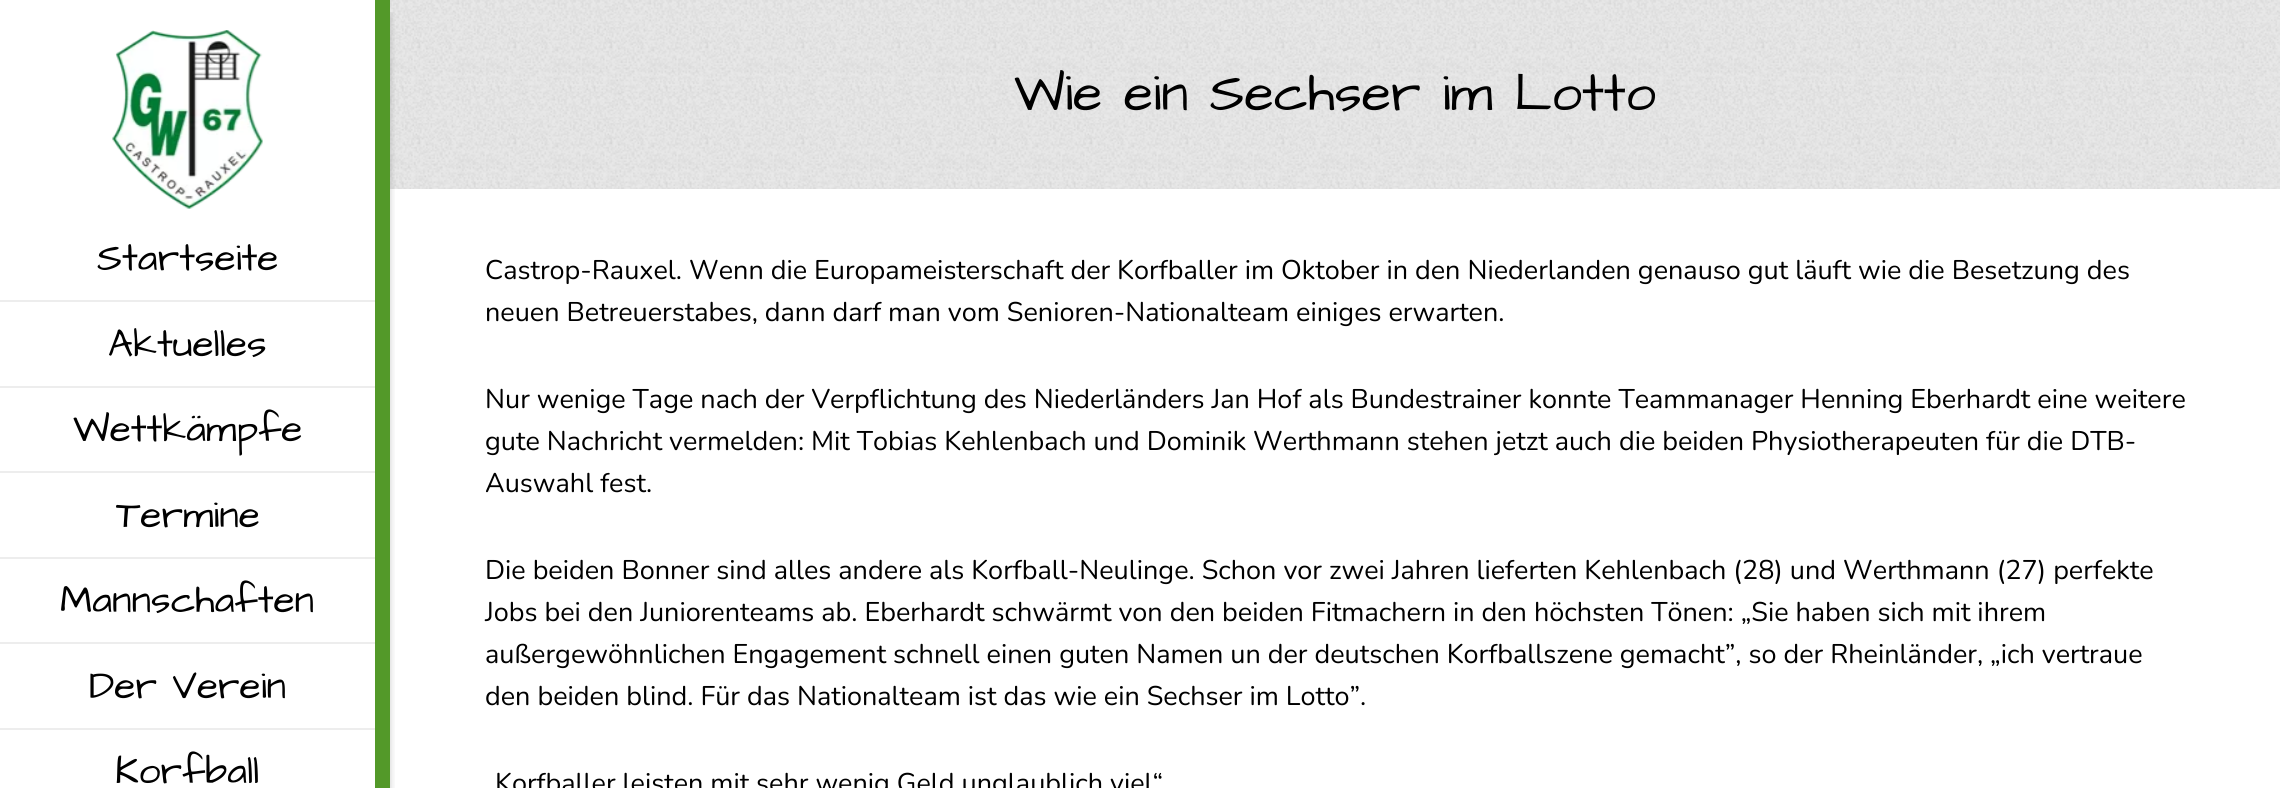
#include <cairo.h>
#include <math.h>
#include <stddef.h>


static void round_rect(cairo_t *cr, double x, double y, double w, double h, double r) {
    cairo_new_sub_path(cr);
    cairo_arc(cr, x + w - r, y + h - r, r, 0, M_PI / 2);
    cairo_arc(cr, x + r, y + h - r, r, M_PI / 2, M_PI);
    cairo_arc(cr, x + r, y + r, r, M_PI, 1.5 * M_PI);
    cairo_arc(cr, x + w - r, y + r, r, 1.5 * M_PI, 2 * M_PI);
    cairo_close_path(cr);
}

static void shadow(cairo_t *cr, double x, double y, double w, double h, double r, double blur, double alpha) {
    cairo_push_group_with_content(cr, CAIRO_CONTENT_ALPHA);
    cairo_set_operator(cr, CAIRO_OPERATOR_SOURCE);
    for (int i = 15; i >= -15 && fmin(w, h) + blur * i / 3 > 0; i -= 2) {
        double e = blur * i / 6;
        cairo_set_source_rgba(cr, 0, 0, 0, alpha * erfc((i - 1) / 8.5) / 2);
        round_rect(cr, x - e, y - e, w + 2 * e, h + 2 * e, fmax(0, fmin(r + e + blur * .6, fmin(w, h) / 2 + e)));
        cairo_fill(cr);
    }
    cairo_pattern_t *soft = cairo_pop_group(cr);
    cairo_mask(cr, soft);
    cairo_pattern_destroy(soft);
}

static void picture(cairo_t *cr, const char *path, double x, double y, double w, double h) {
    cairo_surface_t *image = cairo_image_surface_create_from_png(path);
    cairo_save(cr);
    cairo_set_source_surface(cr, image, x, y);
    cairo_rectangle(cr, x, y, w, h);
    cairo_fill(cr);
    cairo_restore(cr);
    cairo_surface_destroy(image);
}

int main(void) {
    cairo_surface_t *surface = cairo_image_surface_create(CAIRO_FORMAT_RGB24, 2280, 788);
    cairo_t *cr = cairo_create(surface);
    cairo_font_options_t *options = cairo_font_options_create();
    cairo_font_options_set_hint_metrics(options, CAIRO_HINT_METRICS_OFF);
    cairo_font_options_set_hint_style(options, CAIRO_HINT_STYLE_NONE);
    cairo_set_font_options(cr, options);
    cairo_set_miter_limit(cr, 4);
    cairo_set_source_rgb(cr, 1, 1, 1);
    cairo_paint(cr);
    picture(cr, "img2.png", 390, 0, 1890, 189);
    cairo_save(cr);
    cairo_rectangle(cr, 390, 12, 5, 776);
    cairo_clip(cr);
    cairo_set_source_rgb(cr, 0, 0, 0);
    shadow(cr, 0, 15, 390, 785, 0, 4, 0.2);
    cairo_restore(cr);
    cairo_set_source_rgb(cr, 0.325, 0.6, 0.161);
    cairo_rectangle(cr, 375, 0, 15, 788);
    cairo_fill(cr);
    picture(cr, "img1.png", 112, 30, 151, 179);
    cairo_set_source_rgb(cr, 0.929, 0.929, 0.929);
    cairo_rectangle(cr, 0, 300, 375, 2);
    cairo_fill(cr);
    cairo_select_font_face(cr, "Architects Daughter", CAIRO_FONT_SLANT_NORMAL, CAIRO_FONT_WEIGHT_NORMAL);
    cairo_set_font_size(cr, 39);
    cairo_set_source_rgb(cr, 0, 0, 0);
    cairo_move_to(cr, 97, 270);
    cairo_show_text(cr, "Startseite");
    cairo_set_source_rgb(cr, 0.929, 0.929, 0.929);
    cairo_rectangle(cr, 0, 386, 375, 2);
    cairo_fill(cr);
    cairo_set_source_rgb(cr, 0, 0, 0);
    cairo_move_to(cr, 108, 356);
    cairo_show_text(cr, "Aktuelles");
    cairo_set_source_rgb(cr, 0.929, 0.929, 0.929);
    cairo_rectangle(cr, 0, 471, 375, 2);
    cairo_fill(cr);
    cairo_set_source_rgb(cr, 0, 0, 0);
    cairo_move_to(cr, 73, 441);
    cairo_show_text(cr, "Wettkämpfe");
    cairo_set_source_rgb(cr, 0.929, 0.929, 0.929);
    cairo_rectangle(cr, 0, 557, 375, 2);
    cairo_fill(cr);
    cairo_set_source_rgb(cr, 0, 0, 0);
    cairo_move_to(cr, 116, 527);
    cairo_show_text(cr, "Termine");
    cairo_set_source_rgb(cr, 0.929, 0.929, 0.929);
    cairo_rectangle(cr, 0, 642, 375, 2);
    cairo_fill(cr);
    cairo_set_source_rgb(cr, 0, 0, 0);
    cairo_move_to(cr, 60, 612);
    cairo_show_text(cr, "Mannschaften");
    cairo_set_source_rgb(cr, 0.929, 0.929, 0.929);
    cairo_rectangle(cr, 0, 728, 375, 2);
    cairo_fill(cr);
    cairo_set_source_rgb(cr, 0, 0, 0);
    cairo_move_to(cr, 89, 698);
    cairo_show_text(cr, "Der Verein");
    cairo_move_to(cr, 115, 783);
    cairo_show_text(cr, "Korfball");
    cairo_set_font_size(cr, 54);
    cairo_move_to(cr, 1014, 110);
    cairo_show_text(cr, "Wie ein Sechser im Lotto");
    cairo_select_font_face(cr, "Nunito", CAIRO_FONT_SLANT_NORMAL, CAIRO_FONT_WEIGHT_NORMAL);
    cairo_set_font_size(cr, 27);
    cairo_move_to(cr, 485, 279);
    cairo_show_text(cr, "Castrop-Rauxel. Wenn die Europameisterschaft der Korfballer im Oktober in den Niederlanden genauso gut läuft wie die Besetzung des");
    cairo_move_to(cr, 485, 321);
    cairo_show_text(cr, "neuen Betreuerstabes, dann darf man vom Senioren-Nationalteam einiges erwarten.");
    cairo_move_to(cr, 485, 408);
    cairo_show_text(cr, "Nur wenige Tage nach der Verpflichtung des Niederländers Jan Hof als Bundestrainer konnte Teammanager Henning Eberhardt eine weitere");
    cairo_move_to(cr, 485, 450);
    cairo_show_text(cr, "gute Nachricht vermelden: Mit Tobias Kehlenbach und Dominik Werthmann stehen jetzt auch die beiden Physiotherapeuten für die DTB-");
    cairo_move_to(cr, 485, 492);
    cairo_show_text(cr, "Auswahl fest.");
    cairo_move_to(cr, 485, 579);
    cairo_show_text(cr, "Die beiden Bonner sind alles andere als Korfball-Neulinge. Schon vor zwei Jahren lieferten Kehlenbach (28) und Werthmann (27) perfekte");
    cairo_move_to(cr, 485, 621);
    cairo_show_text(cr, "Jobs bei den Juniorenteams ab. Eberhardt schwärmt von den beiden Fitmachern in den höchsten Tönen: „Sie haben sich mit ihrem");
    cairo_move_to(cr, 485, 663);
    cairo_show_text(cr, "außergewöhnlichen Engagement schnell einen guten Namen un der deutschen Korfballszene gemacht”, so der Rheinländer, „ich vertraue");
    cairo_move_to(cr, 485, 705);
    cairo_show_text(cr, "den beiden blind. Für das Nationalteam ist das wie ein Sechser im Lotto”.");
    cairo_move_to(cr, 495, 792);
    cairo_show_text(cr, "Korfballer leisten mit sehr wenig Geld unglaublich viel“");
    cairo_surface_write_to_png(surface, "page.png");
    cairo_font_options_destroy(options);
    cairo_destroy(cr);
    cairo_surface_destroy(surface);
    return 0;
}
